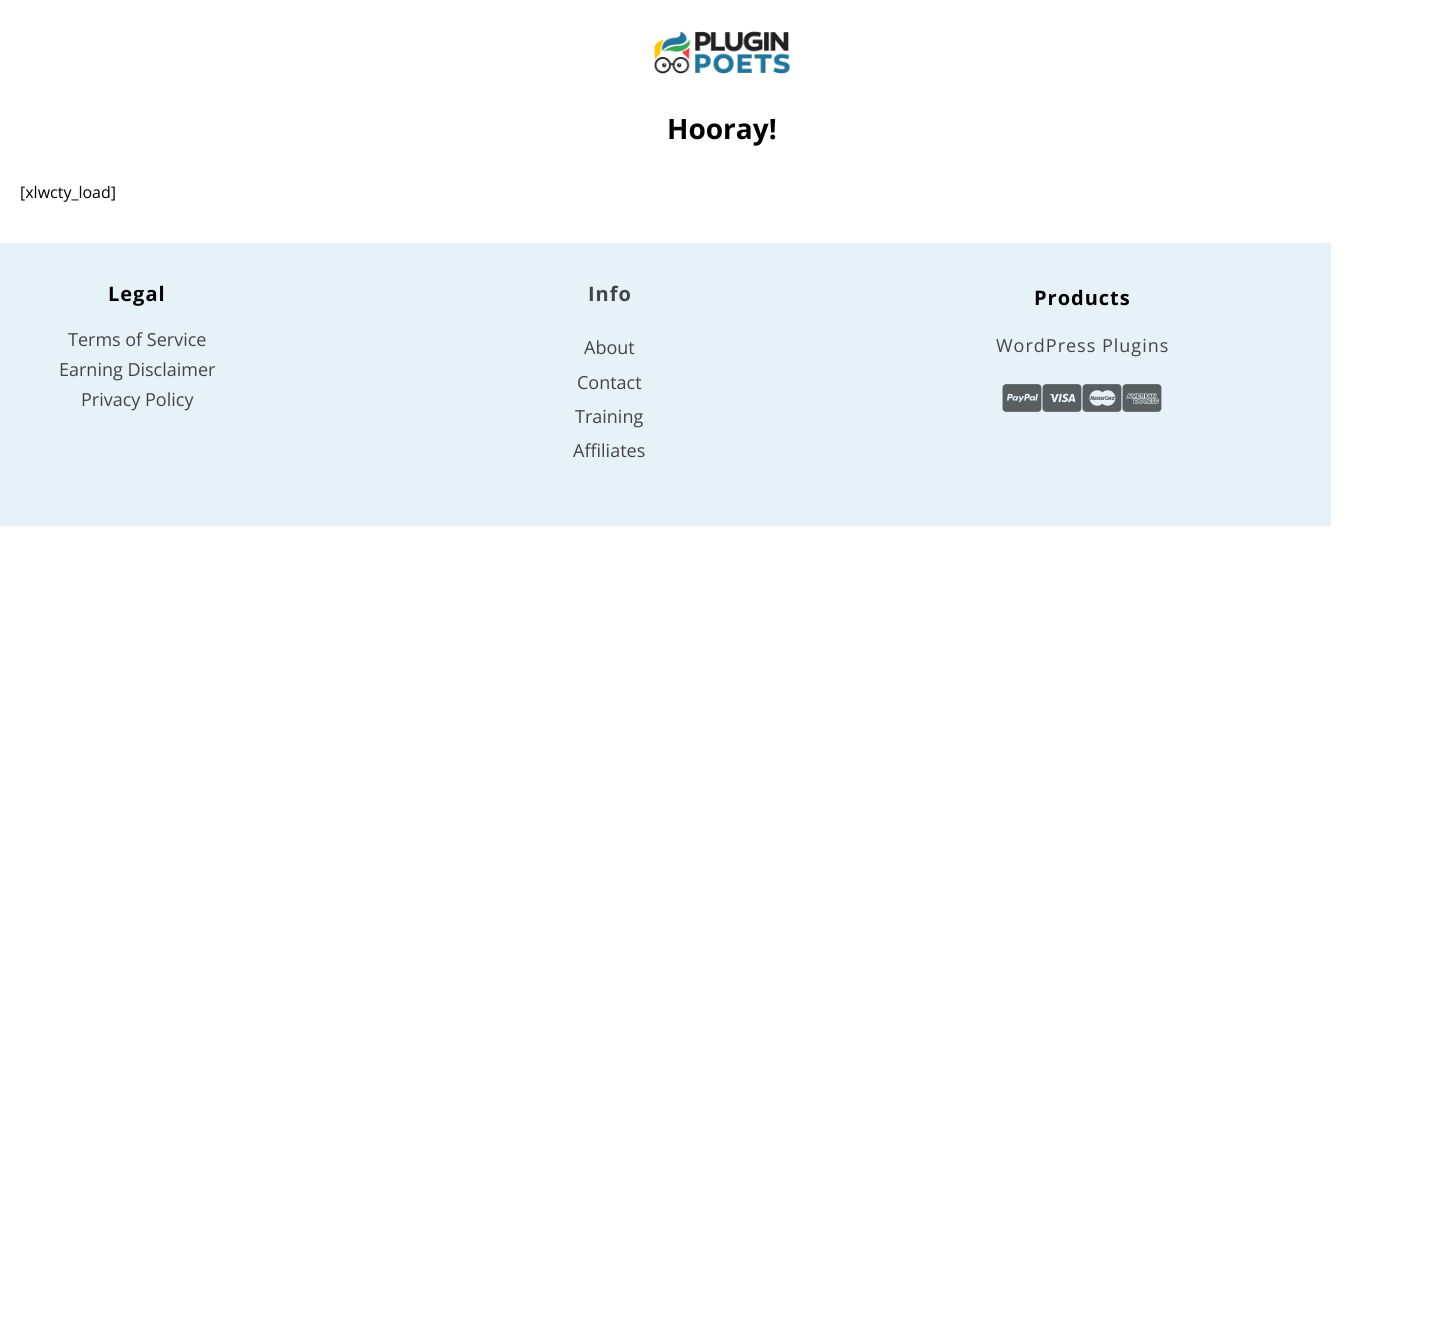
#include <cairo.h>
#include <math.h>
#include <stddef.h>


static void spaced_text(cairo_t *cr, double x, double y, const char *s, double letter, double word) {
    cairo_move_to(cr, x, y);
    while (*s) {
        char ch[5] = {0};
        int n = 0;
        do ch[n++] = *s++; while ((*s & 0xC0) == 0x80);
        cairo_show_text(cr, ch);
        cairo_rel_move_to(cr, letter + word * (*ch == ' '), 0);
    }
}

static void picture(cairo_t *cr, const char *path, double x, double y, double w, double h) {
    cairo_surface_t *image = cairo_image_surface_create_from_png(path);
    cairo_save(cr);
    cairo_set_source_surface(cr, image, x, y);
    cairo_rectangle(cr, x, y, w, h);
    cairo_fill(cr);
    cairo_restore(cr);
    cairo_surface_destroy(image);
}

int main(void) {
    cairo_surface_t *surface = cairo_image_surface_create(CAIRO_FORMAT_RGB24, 1443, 1340);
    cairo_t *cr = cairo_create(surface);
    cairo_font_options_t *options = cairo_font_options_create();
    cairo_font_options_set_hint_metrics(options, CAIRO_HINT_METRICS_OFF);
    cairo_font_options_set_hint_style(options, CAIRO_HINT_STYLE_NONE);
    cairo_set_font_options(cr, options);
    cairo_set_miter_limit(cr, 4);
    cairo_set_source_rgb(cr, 1, 1, 1);
    cairo_paint(cr);
    picture(cr, "img1.png", 653, 31, 138, 43);
    cairo_select_font_face(cr, "Open Sans", CAIRO_FONT_SLANT_NORMAL, CAIRO_FONT_WEIGHT_BOLD);
    cairo_set_font_size(cr, 28);
    cairo_set_source_rgb(cr, 0, 0, 0);
    cairo_move_to(cr, 667, 139);
    cairo_show_text(cr, "Hooray!");
    cairo_select_font_face(cr, "Open Sans", CAIRO_FONT_SLANT_NORMAL, CAIRO_FONT_WEIGHT_NORMAL);
    cairo_set_font_size(cr, 16);
    cairo_move_to(cr, 20, 198);
    cairo_show_text(cr, "[xlwcty_load]");
    cairo_set_source_rgb(cr, 0.906, 0.945, 0.969);
    cairo_rectangle(cr, 0, 243, 1331, 283);
    cairo_fill(cr);
    cairo_select_font_face(cr, "Open Sans", CAIRO_FONT_SLANT_NORMAL, CAIRO_FONT_WEIGHT_BOLD);
    cairo_set_font_size(cr, 20);
    cairo_set_source_rgb(cr, 0, 0, 0);
    spaced_text(cr, 108, 301, "Legal", 1, 0);
    cairo_select_font_face(cr, "Open Sans", CAIRO_FONT_SLANT_NORMAL, CAIRO_FONT_WEIGHT_NORMAL);
    cairo_set_font_size(cr, 18);
    cairo_set_source_rgb(cr, 0.267, 0.267, 0.267);
    cairo_move_to(cr, 68, 346);
    cairo_show_text(cr, "Terms of Service");
    cairo_move_to(cr, 59, 376);
    cairo_show_text(cr, "Earning Disclaimer");
    cairo_move_to(cr, 81, 406);
    cairo_show_text(cr, "Privacy Policy");
    cairo_select_font_face(cr, "Open Sans", CAIRO_FONT_SLANT_NORMAL, CAIRO_FONT_WEIGHT_BOLD);
    cairo_set_font_size(cr, 20);
    spaced_text(cr, 588, 301, "Info", 1, 0);
    cairo_select_font_face(cr, "Open Sans", CAIRO_FONT_SLANT_NORMAL, CAIRO_FONT_WEIGHT_NORMAL);
    cairo_set_font_size(cr, 18);
    cairo_move_to(cr, 584, 354);
    cairo_show_text(cr, "About");
    cairo_move_to(cr, 577, 389);
    cairo_show_text(cr, "Contact");
    cairo_move_to(cr, 575, 423);
    cairo_show_text(cr, "Training");
    cairo_move_to(cr, 573, 457);
    cairo_show_text(cr, "Affiliates");
    cairo_select_font_face(cr, "Open Sans", CAIRO_FONT_SLANT_NORMAL, CAIRO_FONT_WEIGHT_BOLD);
    cairo_set_font_size(cr, 20);
    cairo_set_source_rgb(cr, 0, 0, 0);
    spaced_text(cr, 1034, 305, "Products", 1, 0);
    cairo_select_font_face(cr, "Open Sans", CAIRO_FONT_SLANT_NORMAL, CAIRO_FONT_WEIGHT_NORMAL);
    cairo_set_font_size(cr, 18);
    cairo_set_source_rgb(cr, 0.267, 0.267, 0.267);
    spaced_text(cr, 996, 352, "WordPress Plugins", 1, 0);
    picture(cr, "img2.png", 1002, 384, 40, 28);
    picture(cr, "img3.png", 1042, 384, 40, 28);
    picture(cr, "img4.png", 1082, 384, 40, 28);
    picture(cr, "img5.png", 1122, 384, 40, 28);
    cairo_surface_write_to_png(surface, "page.png");
    cairo_font_options_destroy(options);
    cairo_destroy(cr);
    cairo_surface_destroy(surface);
    return 0;
}
